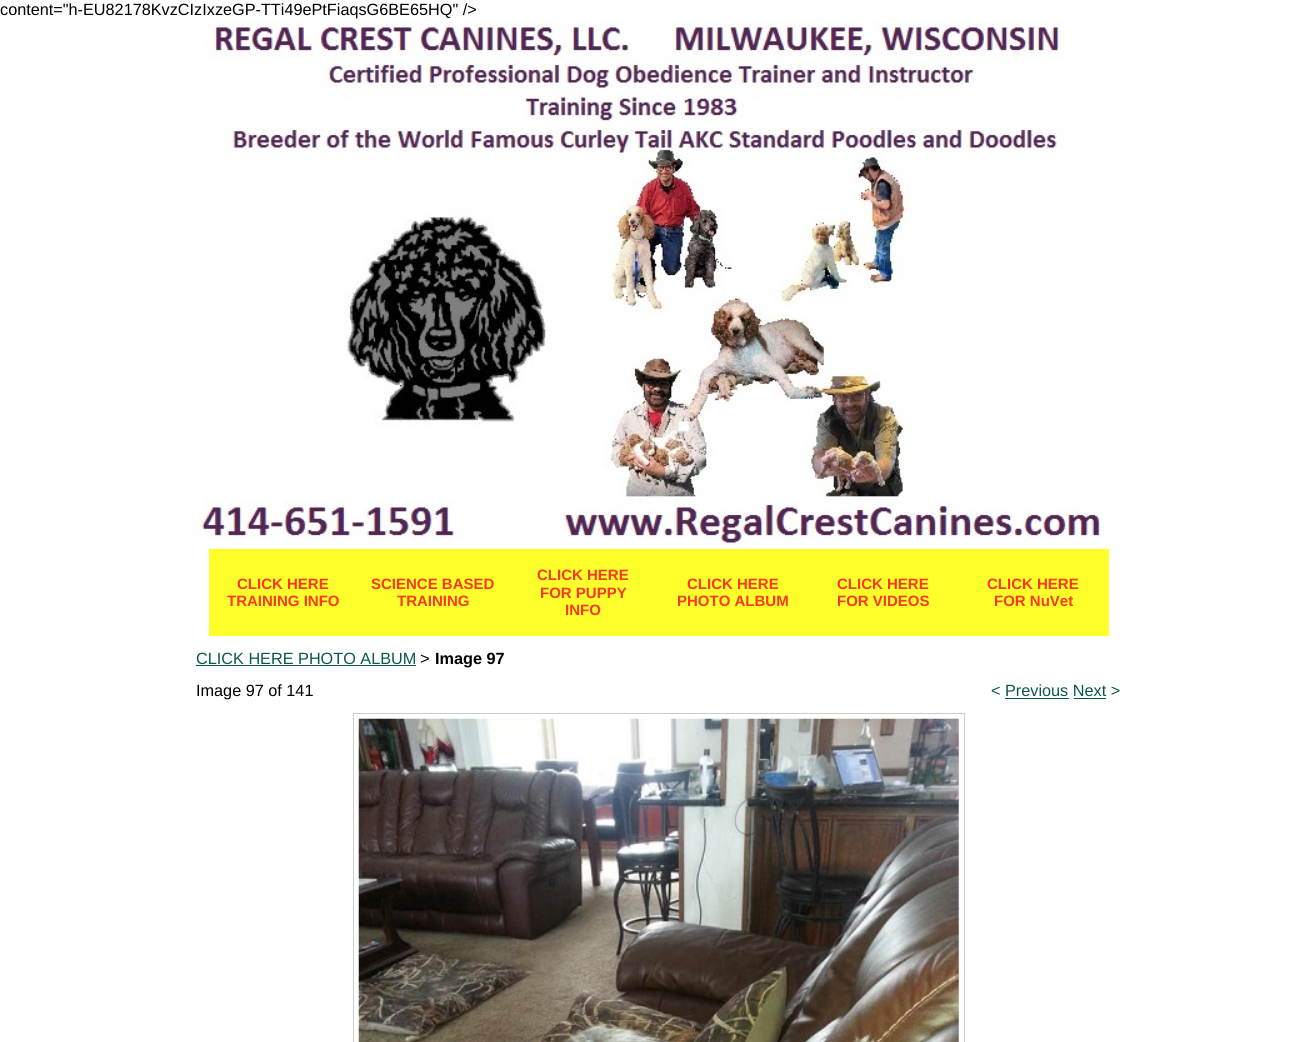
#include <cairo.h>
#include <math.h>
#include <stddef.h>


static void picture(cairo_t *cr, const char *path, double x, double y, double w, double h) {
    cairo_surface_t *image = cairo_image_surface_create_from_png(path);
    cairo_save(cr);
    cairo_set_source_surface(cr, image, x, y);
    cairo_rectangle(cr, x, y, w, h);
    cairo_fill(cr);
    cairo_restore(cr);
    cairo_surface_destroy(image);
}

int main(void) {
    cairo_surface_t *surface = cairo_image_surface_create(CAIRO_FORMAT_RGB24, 1316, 1042);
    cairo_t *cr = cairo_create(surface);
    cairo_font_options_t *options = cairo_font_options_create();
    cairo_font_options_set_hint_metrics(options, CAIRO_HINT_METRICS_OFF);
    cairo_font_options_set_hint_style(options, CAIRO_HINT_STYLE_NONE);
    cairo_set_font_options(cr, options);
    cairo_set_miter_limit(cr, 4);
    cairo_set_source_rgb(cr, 1, 1, 1);
    cairo_paint(cr);
    cairo_select_font_face(cr, "Liberation Sans", CAIRO_FONT_SLANT_NORMAL, CAIRO_FONT_WEIGHT_NORMAL);
    cairo_set_font_size(cr, 16.25);
    cairo_set_source_rgb(cr, 0, 0, 0);
    cairo_move_to(cr, 0, 15);
    cairo_show_text(cr, "content=\"h-EU82178KvzCIzIxzeGP-TTi49ePtFiaqsG6BE65HQ\" />");
    picture(cr, "img1.png", 196, 18, 908, 530);
    cairo_set_source_rgb(cr, 1, 1, 0.169);
    cairo_rectangle(cr, 209, 549, 900, 87);
    cairo_fill(cr);
    cairo_select_font_face(cr, "Liberation Sans", CAIRO_FONT_SLANT_NORMAL, CAIRO_FONT_WEIGHT_BOLD);
    cairo_set_font_size(cr, 15);
    cairo_set_source_rgb(cr, 0.969, 0.224, 0.11);
    cairo_move_to(cr, 237, 589);
    cairo_show_text(cr, "CLICK HERE");
    cairo_move_to(cr, 227, 606);
    cairo_show_text(cr, "TRAINING INFO");
    cairo_move_to(cr, 371, 589);
    cairo_show_text(cr, "SCIENCE BASED");
    cairo_move_to(cr, 397, 606);
    cairo_show_text(cr, "TRAINING");
    cairo_move_to(cr, 537, 580);
    cairo_show_text(cr, "CLICK HERE");
    cairo_move_to(cr, 540, 598);
    cairo_show_text(cr, "FOR PUPPY");
    cairo_move_to(cr, 565, 615);
    cairo_show_text(cr, "INFO");
    cairo_move_to(cr, 687, 589);
    cairo_show_text(cr, "CLICK HERE");
    cairo_move_to(cr, 677, 606);
    cairo_show_text(cr, "PHOTO ALBUM");
    cairo_move_to(cr, 837, 589);
    cairo_show_text(cr, "CLICK HERE");
    cairo_move_to(cr, 837, 606);
    cairo_show_text(cr, "FOR VIDEOS");
    cairo_move_to(cr, 987, 589);
    cairo_show_text(cr, "CLICK HERE");
    cairo_move_to(cr, 994, 606);
    cairo_show_text(cr, "FOR NuVet");
    cairo_select_font_face(cr, "Liberation Sans", CAIRO_FONT_SLANT_NORMAL, CAIRO_FONT_WEIGHT_NORMAL);
    cairo_set_font_size(cr, 16.25);
    cairo_set_source_rgb(cr, 0.043, 0.341, 0.29);
    cairo_move_to(cr, 196, 664);
    cairo_show_text(cr, "CLICK HERE PHOTO ALBUM");
    cairo_rectangle(cr, 196, 665, 220, 1);
    cairo_fill(cr);
    cairo_select_font_face(cr, "Liberation Mono", CAIRO_FONT_SLANT_NORMAL, CAIRO_FONT_WEIGHT_NORMAL);
    cairo_set_source_rgb(cr, 0, 0, 0);
    cairo_move_to(cr, 420, 664);
    cairo_show_text(cr, ">");
    cairo_select_font_face(cr, "Liberation Sans", CAIRO_FONT_SLANT_NORMAL, CAIRO_FONT_WEIGHT_BOLD);
    cairo_move_to(cr, 435, 664);
    cairo_show_text(cr, "Image 97");
    cairo_select_font_face(cr, "Liberation Sans", CAIRO_FONT_SLANT_NORMAL, CAIRO_FONT_WEIGHT_NORMAL);
    cairo_move_to(cr, 196, 696);
    cairo_show_text(cr, "Image 97 of 141");
    cairo_set_source_rgb(cr, 0.043, 0.341, 0.29);
    cairo_move_to(cr, 991, 696);
    cairo_show_text(cr, "< Previous Next >");
    cairo_rectangle(cr, 1005, 698, 64, 1);
    cairo_fill(cr);
    cairo_rectangle(cr, 1074, 698, 32, 1);
    cairo_fill(cr);
    cairo_rectangle(cr, 353.5, 713.5, 611, 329);
    cairo_set_source_rgb(cr, 0.8, 0.8, 0.8);
    cairo_set_line_width(cr, 1);
    cairo_stroke(cr);
    picture(cr, "img2.png", 358, 718, 601, 324);
    cairo_surface_write_to_png(surface, "page.png");
    cairo_font_options_destroy(options);
    cairo_destroy(cr);
    cairo_surface_destroy(surface);
    return 0;
}
